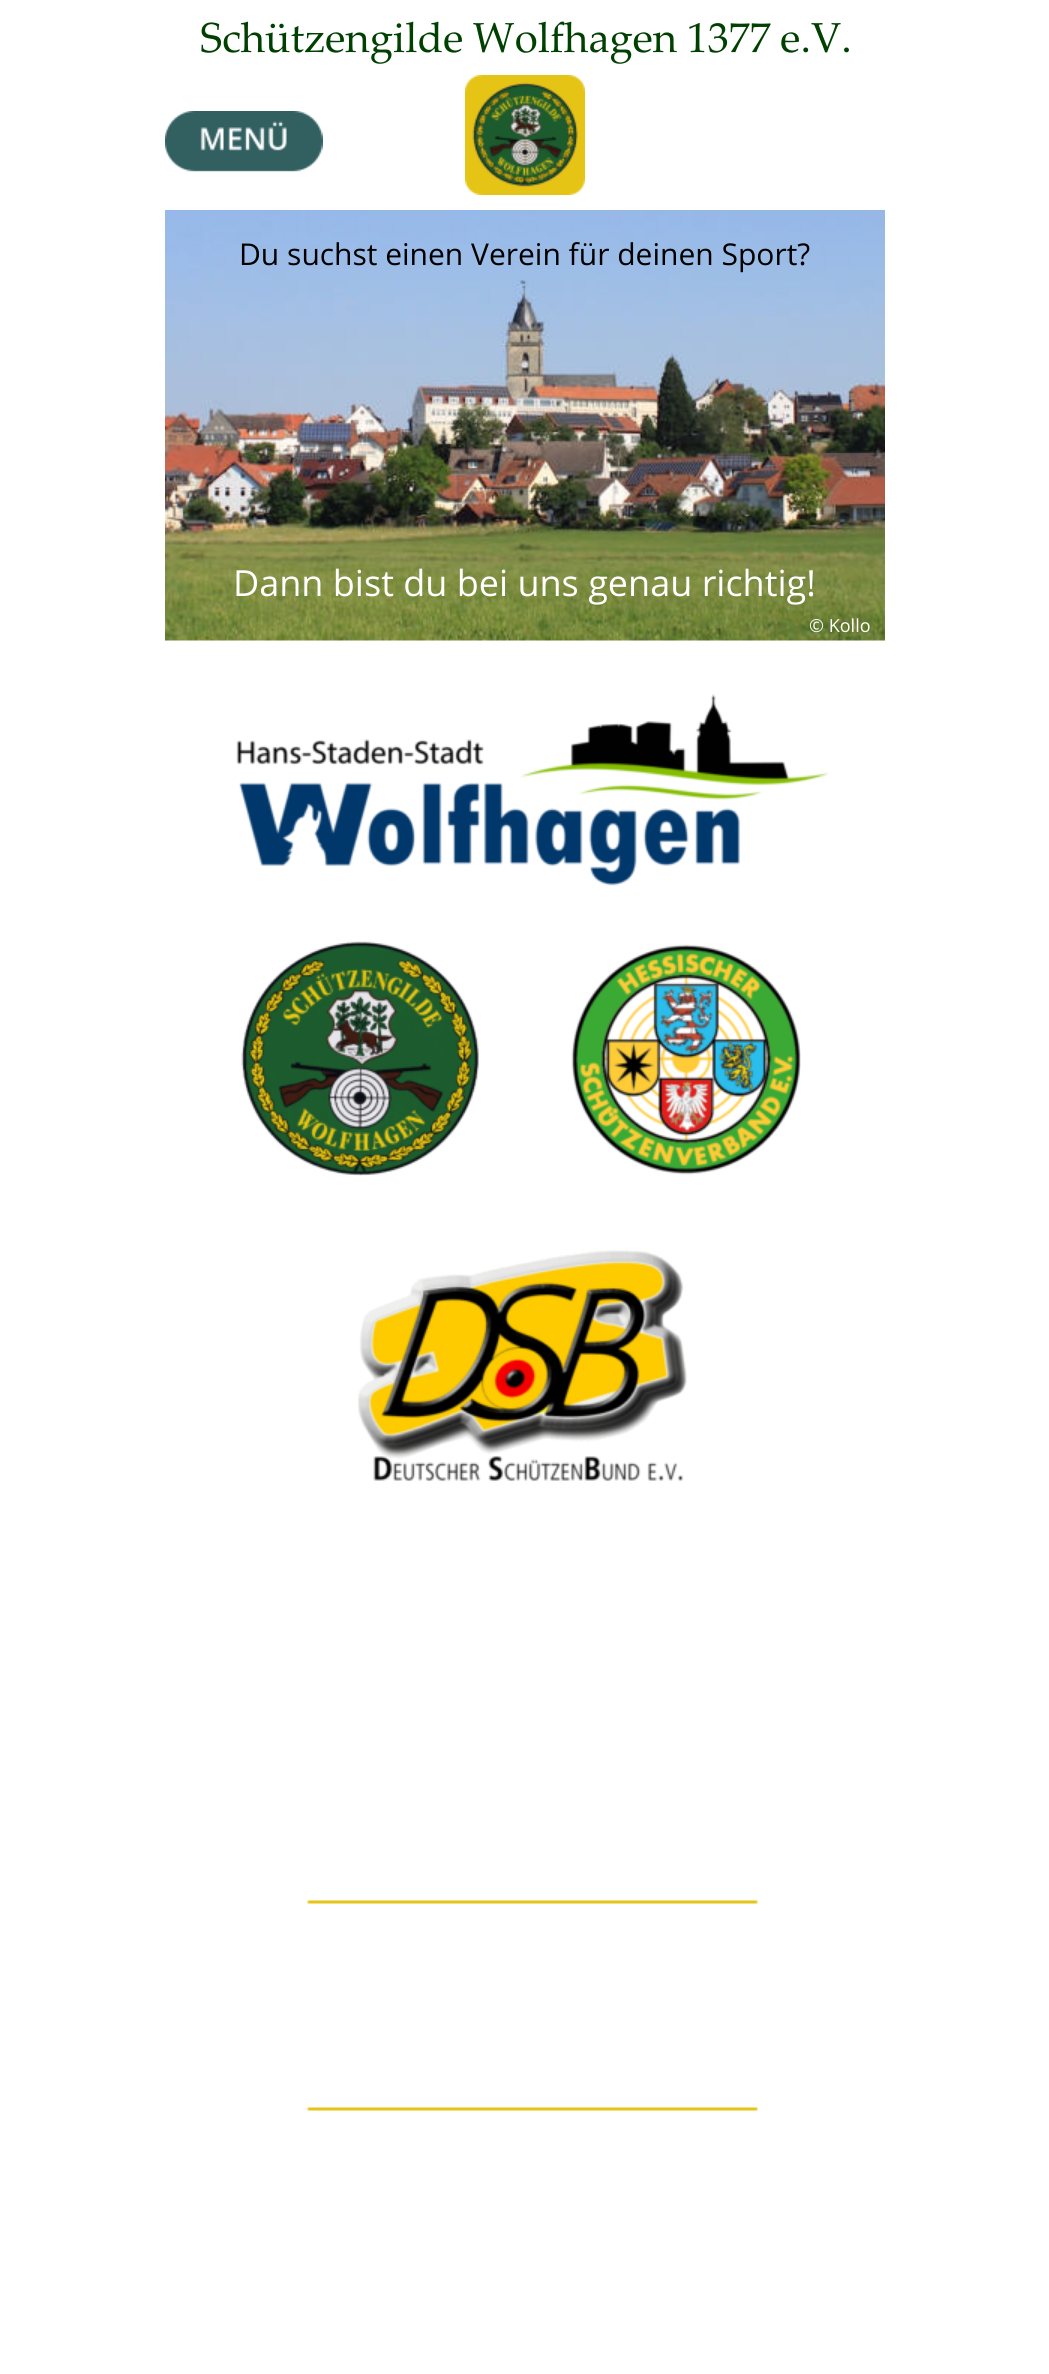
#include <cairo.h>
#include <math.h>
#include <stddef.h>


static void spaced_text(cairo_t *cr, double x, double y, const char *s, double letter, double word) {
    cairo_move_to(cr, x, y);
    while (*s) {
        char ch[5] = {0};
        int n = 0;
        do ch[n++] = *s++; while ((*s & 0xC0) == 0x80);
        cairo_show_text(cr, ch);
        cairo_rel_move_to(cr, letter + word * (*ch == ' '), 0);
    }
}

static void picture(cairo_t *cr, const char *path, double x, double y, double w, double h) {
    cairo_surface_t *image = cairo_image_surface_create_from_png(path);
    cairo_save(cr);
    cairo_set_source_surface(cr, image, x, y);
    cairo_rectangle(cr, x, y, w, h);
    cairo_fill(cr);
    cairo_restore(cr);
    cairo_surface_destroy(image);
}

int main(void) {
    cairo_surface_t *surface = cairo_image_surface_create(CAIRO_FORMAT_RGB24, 1049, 2374);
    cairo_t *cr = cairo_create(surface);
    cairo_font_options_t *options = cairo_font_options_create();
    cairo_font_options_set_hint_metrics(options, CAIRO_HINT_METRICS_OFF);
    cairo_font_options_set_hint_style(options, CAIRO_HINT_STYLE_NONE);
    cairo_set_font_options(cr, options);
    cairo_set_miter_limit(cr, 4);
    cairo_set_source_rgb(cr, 1, 1, 1);
    cairo_paint(cr);
    cairo_select_font_face(cr, "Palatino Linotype", CAIRO_FONT_SLANT_NORMAL, CAIRO_FONT_WEIGHT_NORMAL);
    cairo_set_font_size(cr, 42);
    cairo_set_source_rgb(cr, 0, 0.251, 0.004);
    spaced_text(cr, 200, 52, "Schützengilde Wolfhagen 1377 e.V.", 0, -1);
    picture(cr, "img1.png", 165, 111, 158, 61);
    picture(cr, "img2.png", 465, 75, 120, 120);
    picture(cr, "img3.png", 165, 210, 720, 431);
    cairo_select_font_face(cr, "Open Sans", CAIRO_FONT_SLANT_NORMAL, CAIRO_FONT_WEIGHT_NORMAL);
    cairo_set_font_size(cr, 30);
    cairo_set_source_rgb(cr, 0, 0, 0);
    cairo_move_to(cr, 239, 265);
    cairo_show_text(cr, "Du suchst einen Verein für deinen Sport?");
    cairo_set_font_size(cr, 36);
    cairo_set_source_rgb(cr, 1, 1, 1);
    cairo_move_to(cr, 233, 596);
    cairo_show_text(cr, "Dann bist du bei uns genau richtig!");
    cairo_set_font_size(cr, 18);
    cairo_move_to(cr, 809, 632);
    cairo_show_text(cr, "© Kollo");
    picture(cr, "img4.png", 236, 694, 593, 192);
    picture(cr, "img5.png", 241, 941, 238, 235);
    picture(cr, "img6.png", 571, 944, 230, 231);
    picture(cr, "img7.png", 357, 1249, 331, 233);
    picture(cr, "img8.png", 307, 1900, 451, 4);
    picture(cr, "img8.png", 307, 2107, 451, 4);
    cairo_surface_write_to_png(surface, "page.png");
    cairo_font_options_destroy(options);
    cairo_destroy(cr);
    cairo_surface_destroy(surface);
    return 0;
}
